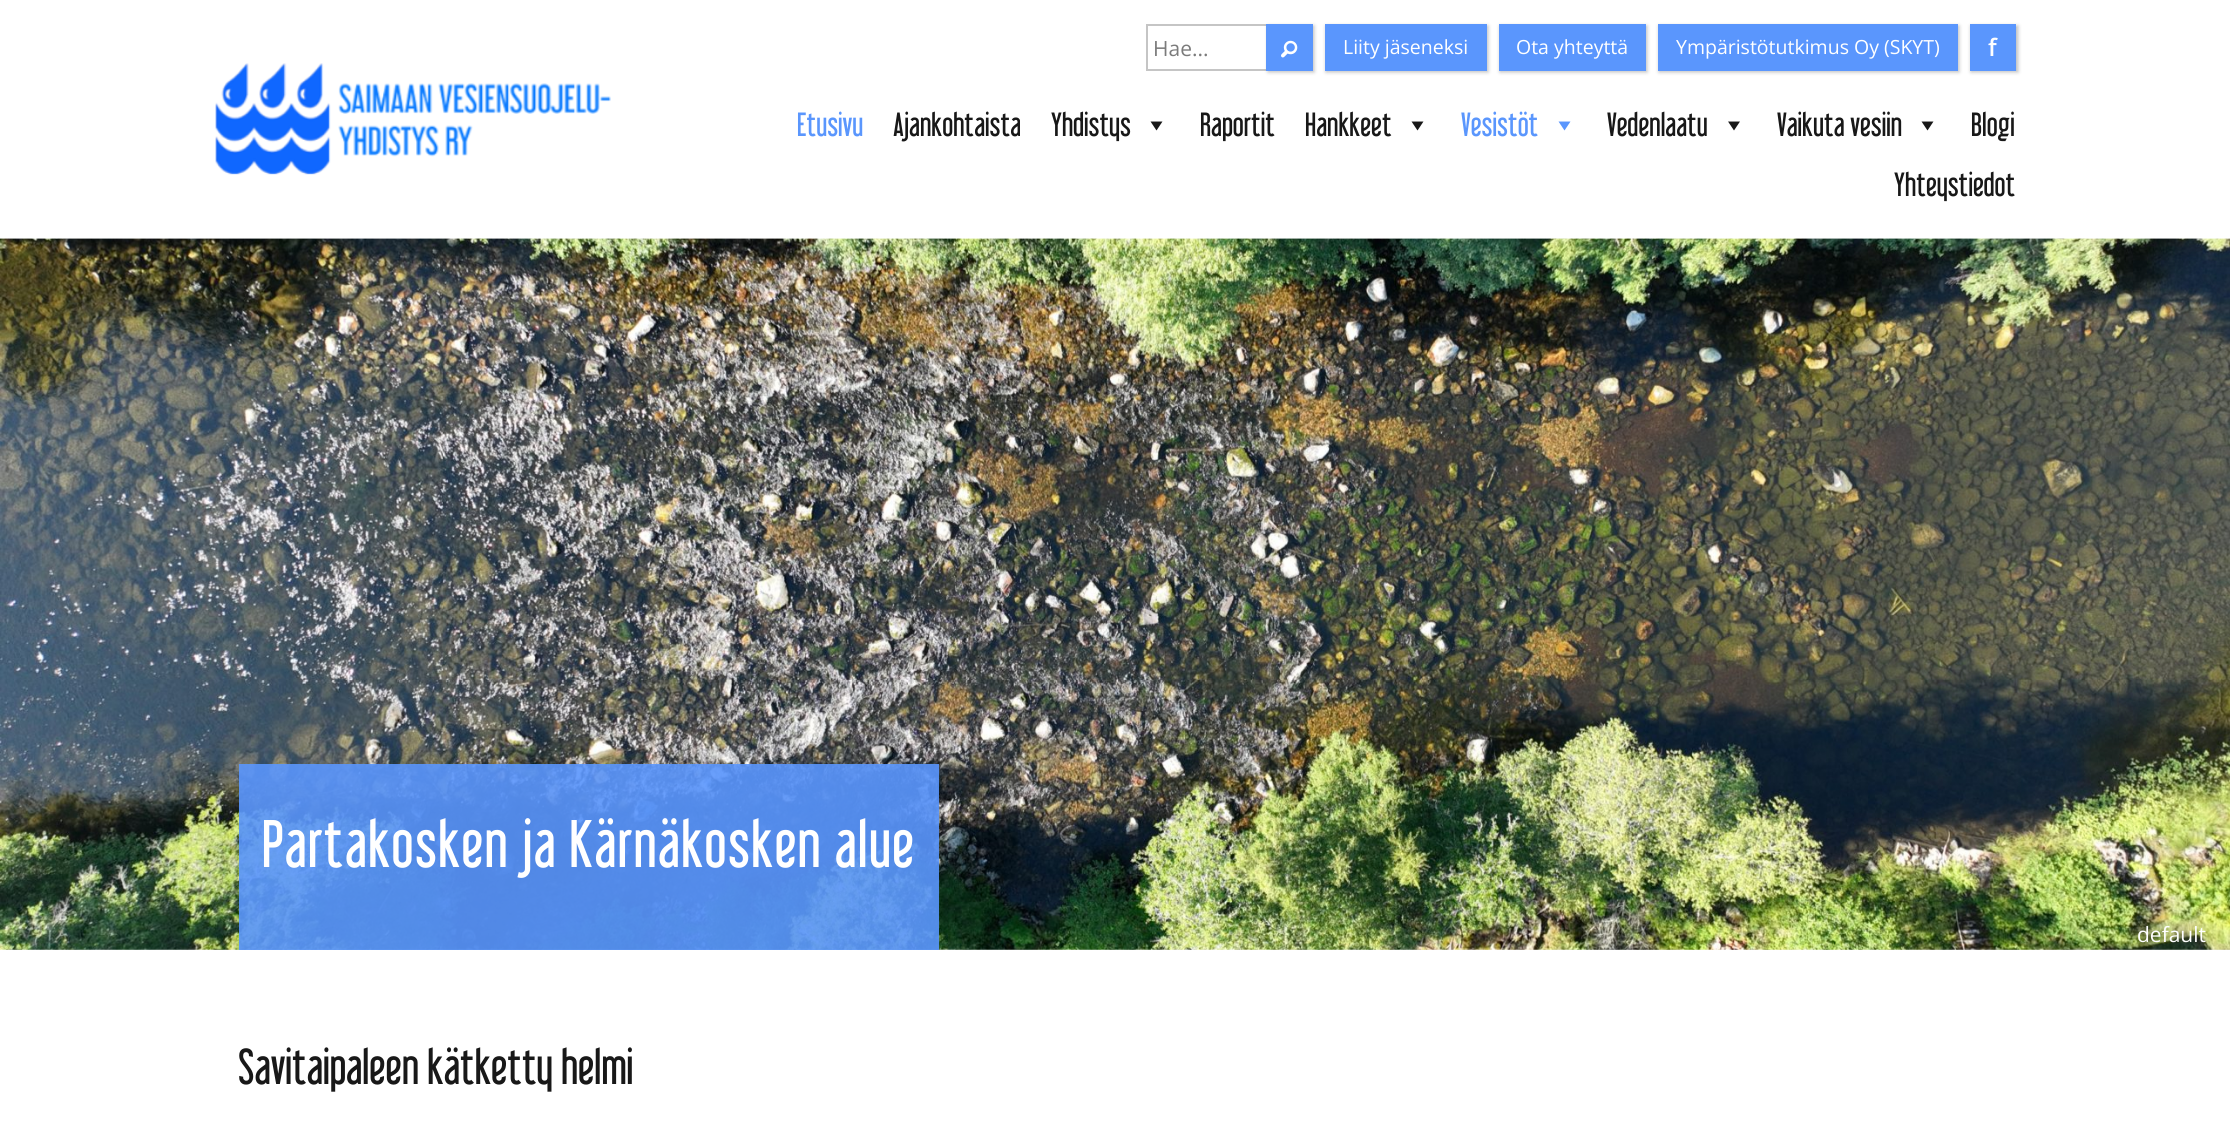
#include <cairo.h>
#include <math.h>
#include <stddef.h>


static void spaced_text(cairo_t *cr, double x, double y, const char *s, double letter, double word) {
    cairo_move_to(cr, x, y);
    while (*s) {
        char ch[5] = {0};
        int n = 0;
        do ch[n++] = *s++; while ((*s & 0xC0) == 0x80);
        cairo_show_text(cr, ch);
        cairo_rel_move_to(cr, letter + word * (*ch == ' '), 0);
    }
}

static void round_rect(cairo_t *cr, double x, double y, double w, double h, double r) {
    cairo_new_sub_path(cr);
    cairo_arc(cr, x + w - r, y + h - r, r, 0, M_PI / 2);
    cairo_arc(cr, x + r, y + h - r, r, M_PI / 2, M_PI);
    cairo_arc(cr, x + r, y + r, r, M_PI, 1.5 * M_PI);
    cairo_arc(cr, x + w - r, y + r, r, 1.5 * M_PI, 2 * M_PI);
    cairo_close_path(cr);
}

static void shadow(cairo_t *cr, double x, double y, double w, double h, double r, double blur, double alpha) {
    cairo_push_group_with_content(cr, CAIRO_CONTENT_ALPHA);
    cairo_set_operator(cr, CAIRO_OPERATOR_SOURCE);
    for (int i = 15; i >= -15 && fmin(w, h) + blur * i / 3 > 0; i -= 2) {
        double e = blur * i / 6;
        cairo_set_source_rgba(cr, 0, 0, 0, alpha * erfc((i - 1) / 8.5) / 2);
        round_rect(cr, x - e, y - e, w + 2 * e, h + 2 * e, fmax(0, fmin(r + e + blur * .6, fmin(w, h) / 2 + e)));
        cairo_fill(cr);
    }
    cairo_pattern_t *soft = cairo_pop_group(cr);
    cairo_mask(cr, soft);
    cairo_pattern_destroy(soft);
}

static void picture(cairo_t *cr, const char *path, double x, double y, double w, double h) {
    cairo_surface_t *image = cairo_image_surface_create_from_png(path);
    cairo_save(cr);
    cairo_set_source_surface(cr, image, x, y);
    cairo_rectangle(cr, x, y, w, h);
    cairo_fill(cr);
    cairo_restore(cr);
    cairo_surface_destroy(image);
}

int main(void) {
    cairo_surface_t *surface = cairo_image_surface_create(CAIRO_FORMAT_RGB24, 2230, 1126);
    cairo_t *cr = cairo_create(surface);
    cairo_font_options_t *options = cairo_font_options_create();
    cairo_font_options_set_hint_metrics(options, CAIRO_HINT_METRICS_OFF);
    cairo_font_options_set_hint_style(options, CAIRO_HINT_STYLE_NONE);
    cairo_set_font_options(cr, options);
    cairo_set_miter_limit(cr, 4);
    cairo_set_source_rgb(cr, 1, 1, 1);
    cairo_paint(cr);
    picture(cr, "img1.png", 215, 63, 396, 112);
    cairo_set_source_rgb(cr, 0.773, 0.773, 0.773);
    cairo_rectangle(cr, 1146, 24, 120, 2);
    cairo_fill(cr);
    cairo_rectangle(cr, 1146, 69, 120, 2);
    cairo_fill(cr);
    cairo_rectangle(cr, 1146, 24, 2, 47);
    cairo_fill(cr);
    cairo_select_font_face(cr, "Open Sans", CAIRO_FONT_SLANT_NORMAL, CAIRO_FONT_WEIGHT_NORMAL);
    cairo_set_font_size(cr, 21);
    cairo_set_source_rgb(cr, 0.482, 0.482, 0.482);
    cairo_move_to(cr, 1153, 56);
    cairo_show_text(cr, "Hae...");
    cairo_set_source_rgb(cr, 0.094, 0.094, 0.094);
    shadow(cr, 1268, 26, 46, 46, 0, 2, 0.3);
    cairo_set_source_rgb(cr, 0.353, 0.588, 0.992);
    cairo_rectangle(cr, 1266, 24, 47, 47);
    cairo_fill(cr);
    picture(cr, "img2.png", 1281, 40, 17, 18);
    cairo_set_source_rgb(cr, 0.094, 0.094, 0.094);
    shadow(cr, 1326, 26, 162, 46, 0, 2, 0.3);
    cairo_set_source_rgb(cr, 0.353, 0.588, 0.992);
    cairo_rectangle(cr, 1325, 24, 162, 47);
    cairo_fill(cr);
    cairo_set_font_size(cr, 19.5);
    cairo_set_source_rgb(cr, 1, 1, 1);
    cairo_move_to(cr, 1343, 54);
    cairo_show_text(cr, "Liity jäseneksi");
    cairo_set_source_rgb(cr, 0.094, 0.094, 0.094);
    shadow(cr, 1500, 26, 147, 46, 0, 2, 0.3);
    cairo_set_source_rgb(cr, 0.353, 0.588, 0.992);
    cairo_rectangle(cr, 1499, 24, 147, 47);
    cairo_fill(cr);
    cairo_set_source_rgb(cr, 1, 1, 1);
    cairo_move_to(cr, 1516, 54);
    cairo_show_text(cr, "Ota yhteyttä");
    cairo_set_source_rgb(cr, 0.094, 0.094, 0.094);
    shadow(cr, 1659, 26, 300, 46, 0, 2, 0.3);
    cairo_set_source_rgb(cr, 0.353, 0.588, 0.992);
    cairo_rectangle(cr, 1658, 24, 300, 47);
    cairo_fill(cr);
    cairo_set_source_rgb(cr, 1, 1, 1);
    cairo_move_to(cr, 1676, 54);
    cairo_show_text(cr, "Ympäristötutkimus Oy (SKYT)");
    cairo_set_source_rgb(cr, 0.094, 0.094, 0.094);
    shadow(cr, 1971, 26, 47, 46, 0, 2, 0.3);
    cairo_set_source_rgb(cr, 0.353, 0.588, 0.992);
    cairo_rectangle(cr, 1970, 24, 46, 47);
    cairo_fill(cr);
    cairo_select_font_face(cr, "Open Sans SemiBold", CAIRO_FONT_SLANT_NORMAL, CAIRO_FONT_WEIGHT_NORMAL);
    cairo_set_font_size(cr, 24);
    cairo_set_source_rgb(cr, 1, 1, 1);
    cairo_move_to(cr, 1988, 56);
    cairo_show_text(cr, "f");
    cairo_select_font_face(cr, "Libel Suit", CAIRO_FONT_SLANT_NORMAL, CAIRO_FONT_WEIGHT_NORMAL);
    cairo_set_font_size(cr, 30);
    cairo_set_source_rgb(cr, 0.353, 0.588, 0.992);
    cairo_move_to(cr, 797, 136);
    cairo_show_text(cr, "Etusivu");
    cairo_set_source_rgb(cr, 0.094, 0.094, 0.094);
    cairo_move_to(cr, 893, 136);
    cairo_show_text(cr, "Ajankohtaista");
    cairo_move_to(cr, 1051, 136);
    cairo_show_text(cr, "Yhdistys");
    cairo_new_path(cr);
    cairo_move_to(cr, 1162.5, 121.5);
    cairo_line_to(cr, 1156.5, 130.5);
    cairo_line_to(cr, 1150.5, 121.5);
    cairo_close_path(cr);
    cairo_fill(cr);
    cairo_move_to(cr, 1200, 136);
    cairo_show_text(cr, "Raportit");
    cairo_move_to(cr, 1305, 136);
    cairo_show_text(cr, "Hankkeet");
    cairo_new_path(cr);
    cairo_move_to(cr, 1423.5, 121.5);
    cairo_line_to(cr, 1417.5, 130.5);
    cairo_line_to(cr, 1411.5, 121.5);
    cairo_close_path(cr);
    cairo_fill(cr);
    cairo_set_source_rgb(cr, 0.353, 0.588, 0.992);
    cairo_move_to(cr, 1461, 136);
    cairo_show_text(cr, "Vesistöt");
    cairo_new_path(cr);
    cairo_move_to(cr, 1570.5, 121.5);
    cairo_line_to(cr, 1564.5, 130.5);
    cairo_line_to(cr, 1558.5, 121.5);
    cairo_close_path(cr);
    cairo_fill(cr);
    cairo_set_source_rgb(cr, 0.094, 0.094, 0.094);
    cairo_move_to(cr, 1607, 136);
    cairo_show_text(cr, "Vedenlaatu");
    cairo_new_path(cr);
    cairo_move_to(cr, 1740, 121.5);
    cairo_line_to(cr, 1734, 130.5);
    cairo_line_to(cr, 1728, 121.5);
    cairo_close_path(cr);
    cairo_fill(cr);
    cairo_move_to(cr, 1777, 136);
    cairo_show_text(cr, "Vaikuta vesiin");
    cairo_new_path(cr);
    cairo_move_to(cr, 1933.5, 121.5);
    cairo_line_to(cr, 1927.5, 130.5);
    cairo_line_to(cr, 1921.5, 121.5);
    cairo_close_path(cr);
    cairo_fill(cr);
    cairo_move_to(cr, 1971, 136);
    cairo_show_text(cr, "Blogi");
    cairo_move_to(cr, 1894, 196);
    cairo_show_text(cr, "Yhteystiedot");
    picture(cr, "img3.png", 0, 238, 2230, 712);
    cairo_set_source_rgba(cr, 0.353, 0.588, 0.992, 0.9);
    cairo_rectangle(cr, 239, 764, 700, 186);
    cairo_fill(cr);
    cairo_set_font_size(cr, 60);
    cairo_set_source_rgb(cr, 1, 1, 1);
    spaced_text(cr, 262, 867, "Partakosken ja Kärnäkosken alue", 1.5, 0);
    cairo_select_font_face(cr, "Open Sans", CAIRO_FONT_SLANT_NORMAL, CAIRO_FONT_WEIGHT_NORMAL);
    cairo_set_font_size(cr, 21);
    cairo_move_to(cr, 2137, 942);
    cairo_show_text(cr, "default");
    cairo_select_font_face(cr, "Libel Suit", CAIRO_FONT_SLANT_NORMAL, CAIRO_FONT_WEIGHT_NORMAL);
    cairo_set_font_size(cr, 45);
    cairo_set_source_rgb(cr, 0.094, 0.094, 0.094);
    cairo_move_to(cr, 238, 1084);
    cairo_show_text(cr, "Savitaipaleen kätketty helmi");
    cairo_surface_write_to_png(surface, "page.png");
    cairo_font_options_destroy(options);
    cairo_destroy(cr);
    cairo_surface_destroy(surface);
    return 0;
}
